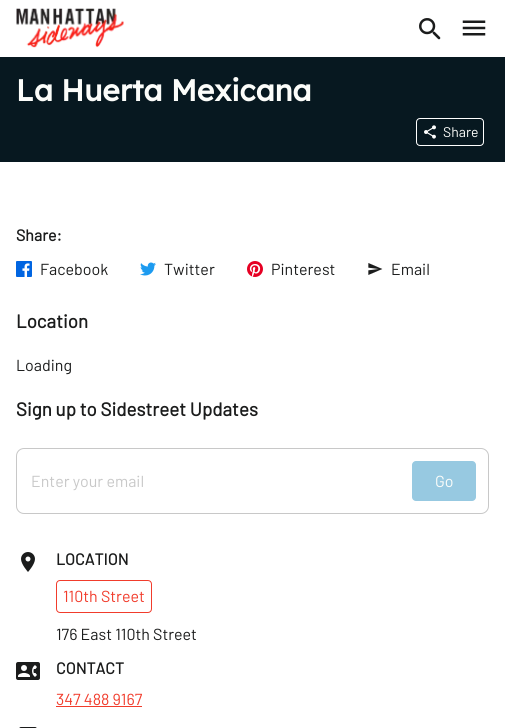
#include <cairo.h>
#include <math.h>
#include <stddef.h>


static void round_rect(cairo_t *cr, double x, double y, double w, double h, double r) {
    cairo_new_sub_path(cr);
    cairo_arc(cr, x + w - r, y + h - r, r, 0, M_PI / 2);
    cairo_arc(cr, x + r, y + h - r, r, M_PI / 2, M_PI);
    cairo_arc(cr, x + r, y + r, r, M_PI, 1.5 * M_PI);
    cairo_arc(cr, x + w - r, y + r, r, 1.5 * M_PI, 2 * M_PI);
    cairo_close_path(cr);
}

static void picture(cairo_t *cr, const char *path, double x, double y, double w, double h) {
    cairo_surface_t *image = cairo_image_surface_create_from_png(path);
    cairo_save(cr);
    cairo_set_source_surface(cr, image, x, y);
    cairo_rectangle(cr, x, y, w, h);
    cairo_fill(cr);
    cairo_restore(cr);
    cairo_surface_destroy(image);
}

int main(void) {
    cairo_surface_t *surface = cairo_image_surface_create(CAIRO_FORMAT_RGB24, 505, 728);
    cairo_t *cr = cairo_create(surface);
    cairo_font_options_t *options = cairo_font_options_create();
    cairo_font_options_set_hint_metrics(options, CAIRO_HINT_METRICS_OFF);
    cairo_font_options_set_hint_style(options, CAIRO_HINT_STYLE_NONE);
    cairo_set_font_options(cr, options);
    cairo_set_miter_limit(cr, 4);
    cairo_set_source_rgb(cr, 1, 1, 1);
    cairo_paint(cr);
    picture(cr, "img1.png", 16, 8, 108, 40);
    picture(cr, "img2.png", 419, 18, 22, 22);
    picture(cr, "img3.png", 462, 20, 24, 16);
    cairo_set_source_rgb(cr, 0.031, 0.094, 0.125);
    cairo_rectangle(cr, 0, 57, 505, 105);
    cairo_fill(cr);
    cairo_select_font_face(cr, "Lexend", CAIRO_FONT_SLANT_NORMAL, CAIRO_FONT_WEIGHT_BOLD);
    cairo_set_font_size(cr, 30);
    cairo_set_source_rgb(cr, 0.988, 0.992, 0.98);
    cairo_move_to(cr, 16, 101);
    cairo_show_text(cr, "La Huerta Mexicana");
    round_rect(cr, 416.5, 118.5, 67, 27, 3.5);
    cairo_set_source_rgb(cr, 1, 1, 1);
    cairo_set_line_width(cr, 1);
    cairo_stroke(cr);
    picture(cr, "img4.png", 424, 125, 12, 14);
    cairo_select_font_face(cr, "Barlow", CAIRO_FONT_SLANT_NORMAL, CAIRO_FONT_WEIGHT_NORMAL);
    cairo_set_font_size(cr, 14);
    cairo_set_source_rgb(cr, 0.988, 0.992, 0.98);
    cairo_move_to(cr, 443, 137);
    cairo_show_text(cr, "Share");
    cairo_select_font_face(cr, "Barlow", CAIRO_FONT_SLANT_NORMAL, CAIRO_FONT_WEIGHT_BOLD);
    cairo_set_font_size(cr, 16);
    cairo_set_source_rgb(cr, 0.106, 0.11, 0.11);
    cairo_move_to(cr, 16, 241);
    cairo_show_text(cr, "Share:");
    picture(cr, "img5.png", 16, 261, 16, 16);
    cairo_select_font_face(cr, "Barlow", CAIRO_FONT_SLANT_NORMAL, CAIRO_FONT_WEIGHT_NORMAL);
    cairo_move_to(cr, 40, 275);
    cairo_show_text(cr, "Facebook");
    picture(cr, "img6.png", 140, 262, 16, 14);
    cairo_move_to(cr, 164, 275);
    cairo_show_text(cr, "Twitter");
    picture(cr, "img7.png", 247, 261, 16, 16);
    cairo_move_to(cr, 271, 275);
    cairo_show_text(cr, "Pinterest");
    picture(cr, "img8.png", 368, 263, 15, 12);
    cairo_move_to(cr, 391, 275);
    cairo_show_text(cr, "Email");
    cairo_select_font_face(cr, "Barlow", CAIRO_FONT_SLANT_NORMAL, CAIRO_FONT_WEIGHT_BOLD);
    cairo_set_font_size(cr, 18.75);
    cairo_move_to(cr, 16, 328);
    cairo_show_text(cr, "Location");
    cairo_select_font_face(cr, "Barlow", CAIRO_FONT_SLANT_NORMAL, CAIRO_FONT_WEIGHT_NORMAL);
    cairo_set_font_size(cr, 16);
    cairo_move_to(cr, 16, 371);
    cairo_show_text(cr, "Loading");
    cairo_select_font_face(cr, "Barlow", CAIRO_FONT_SLANT_NORMAL, CAIRO_FONT_WEIGHT_BOLD);
    cairo_set_font_size(cr, 18.75);
    cairo_move_to(cr, 16, 416);
    cairo_show_text(cr, "Sign up to Sidestreet Updates");
    round_rect(cr, 16.5, 448.5, 472, 65, 7.5);
    cairo_set_source_rgb(cr, 0.784, 0.784, 0.784);
    cairo_stroke(cr);
    cairo_select_font_face(cr, "Barlow", CAIRO_FONT_SLANT_NORMAL, CAIRO_FONT_WEIGHT_NORMAL);
    cairo_set_font_size(cr, 16);
    cairo_move_to(cr, 31, 487);
    cairo_show_text(cr, "Enter your email");
    cairo_set_source_rgb(cr, 0.592, 0.788, 0.882);
    round_rect(cr, 412, 461, 64, 40, 4);
    cairo_fill(cr);
    cairo_set_source_rgb(cr, 0.988, 0.992, 0.98);
    cairo_move_to(cr, 435, 487);
    cairo_show_text(cr, "Go");
    picture(cr, "img9.png", 21, 552, 14, 20);
    cairo_select_font_face(cr, "Barlow", CAIRO_FONT_SLANT_NORMAL, CAIRO_FONT_WEIGHT_BOLD);
    cairo_set_source_rgb(cr, 0.106, 0.11, 0.11);
    cairo_move_to(cr, 56, 565);
    cairo_show_text(cr, "LOCATION");
    round_rect(cr, 56.5, 580.5, 95, 32, 3.5);
    cairo_set_source_rgb(cr, 0.945, 0.235, 0.173);
    cairo_stroke(cr);
    cairo_select_font_face(cr, "Barlow", CAIRO_FONT_SLANT_NORMAL, CAIRO_FONT_WEIGHT_NORMAL);
    cairo_move_to(cr, 63, 602);
    cairo_show_text(cr, "110th Street");
    cairo_set_source_rgb(cr, 0.106, 0.11, 0.11);
    cairo_move_to(cr, 56, 640);
    cairo_show_text(cr, "176 East 110th Street");
    picture(cr, "img10.png", 16, 662, 24, 18);
    cairo_select_font_face(cr, "Barlow", CAIRO_FONT_SLANT_NORMAL, CAIRO_FONT_WEIGHT_BOLD);
    cairo_move_to(cr, 56, 674);
    cairo_show_text(cr, "CONTACT");
    cairo_select_font_face(cr, "Barlow", CAIRO_FONT_SLANT_NORMAL, CAIRO_FONT_WEIGHT_NORMAL);
    cairo_set_source_rgb(cr, 0.945, 0.235, 0.173);
    cairo_move_to(cr, 56, 705);
    cairo_show_text(cr, "347 488 9167");
    cairo_rectangle(cr, 56, 706, 86, 1);
    cairo_fill(cr);
    picture(cr, "img11.png", 19, 727, 18, 1);
    cairo_surface_write_to_png(surface, "page.png");
    cairo_font_options_destroy(options);
    cairo_destroy(cr);
    cairo_surface_destroy(surface);
    return 0;
}
